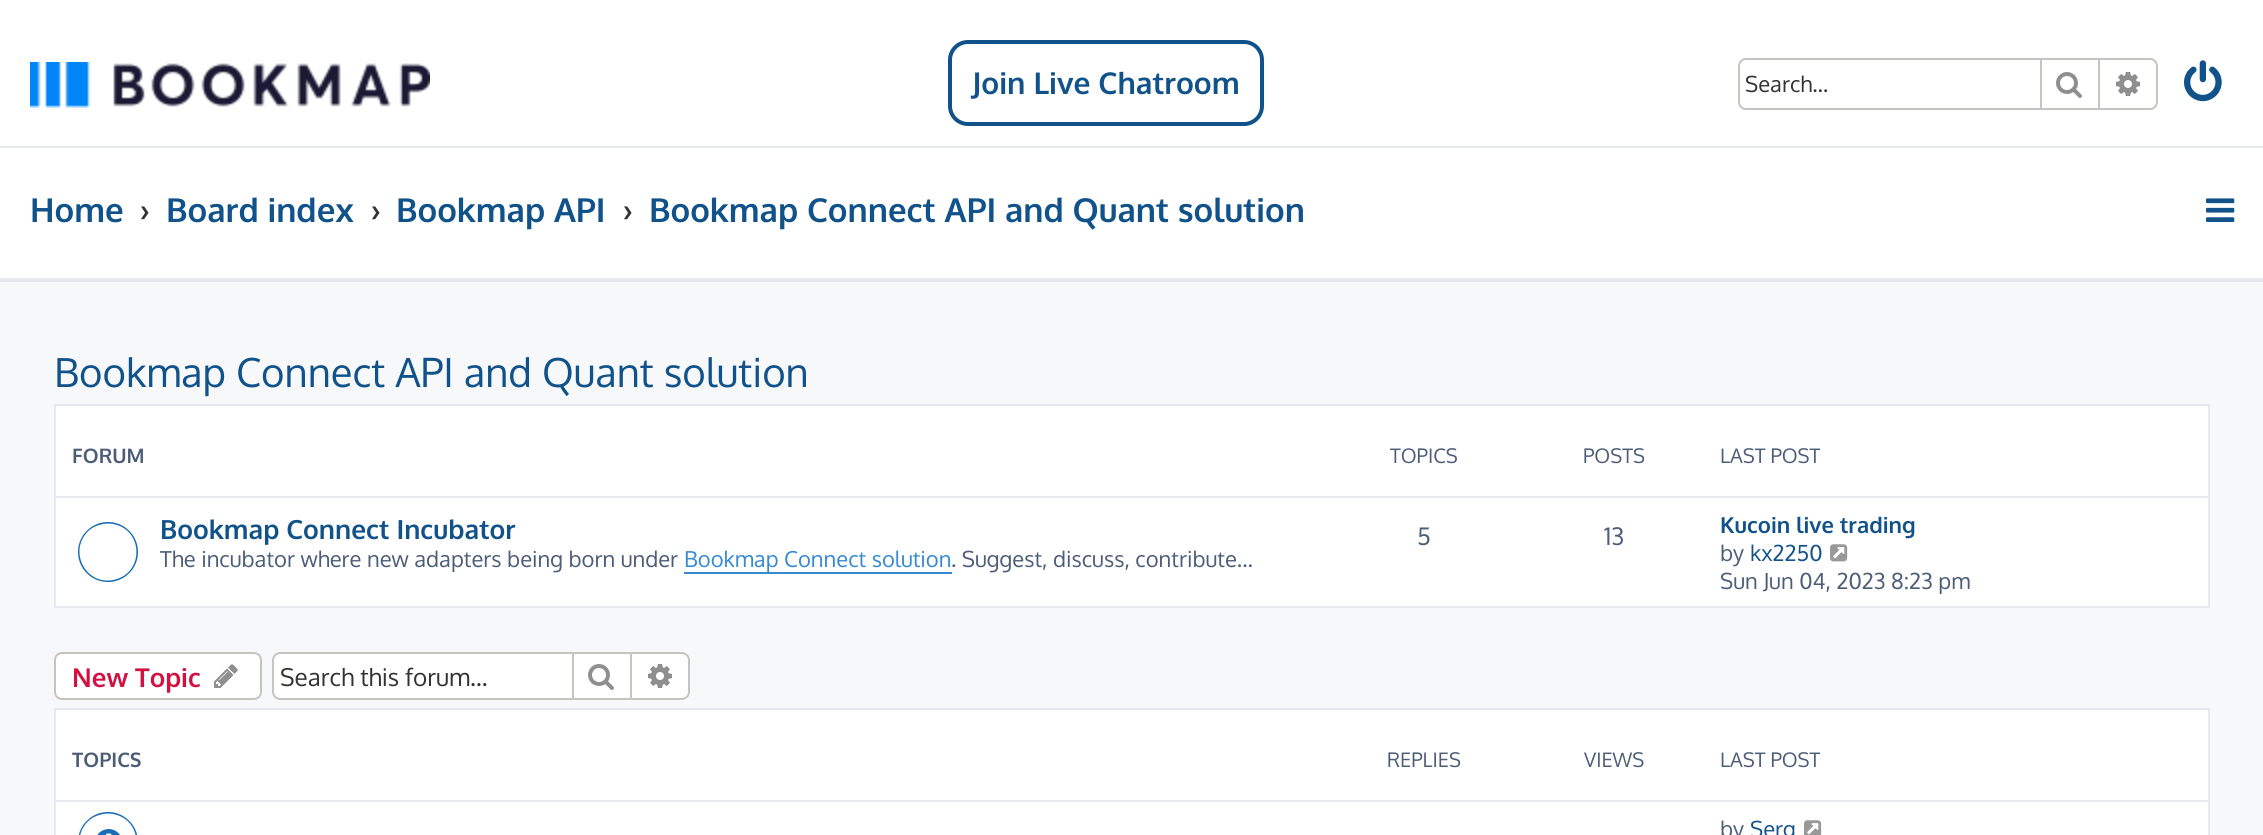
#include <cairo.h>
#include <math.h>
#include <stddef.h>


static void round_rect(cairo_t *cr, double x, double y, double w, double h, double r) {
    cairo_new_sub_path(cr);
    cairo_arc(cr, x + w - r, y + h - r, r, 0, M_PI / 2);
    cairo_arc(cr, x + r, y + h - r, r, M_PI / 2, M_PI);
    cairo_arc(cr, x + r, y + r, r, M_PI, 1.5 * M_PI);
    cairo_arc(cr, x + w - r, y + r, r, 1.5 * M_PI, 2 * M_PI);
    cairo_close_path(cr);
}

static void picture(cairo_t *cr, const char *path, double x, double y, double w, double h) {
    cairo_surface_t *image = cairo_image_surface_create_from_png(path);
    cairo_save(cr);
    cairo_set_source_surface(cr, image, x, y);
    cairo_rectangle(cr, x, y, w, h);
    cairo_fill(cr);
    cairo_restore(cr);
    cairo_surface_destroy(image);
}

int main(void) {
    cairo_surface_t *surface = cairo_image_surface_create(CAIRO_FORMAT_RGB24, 2263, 835);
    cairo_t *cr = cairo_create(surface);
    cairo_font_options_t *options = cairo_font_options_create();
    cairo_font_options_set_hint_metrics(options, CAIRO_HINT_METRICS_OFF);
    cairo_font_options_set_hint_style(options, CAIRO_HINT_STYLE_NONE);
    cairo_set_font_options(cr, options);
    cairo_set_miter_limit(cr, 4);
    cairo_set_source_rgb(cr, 0.961, 0.969, 0.98);
    cairo_paint(cr);
    cairo_set_source_rgb(cr, 1, 1, 1);
    cairo_rectangle(cr, 0, 0, 2263, 146);
    cairo_fill(cr);
    cairo_set_source_rgb(cr, 0.902, 0.914, 0.929);
    cairo_rectangle(cr, 0, 146, 2263, 2);
    cairo_fill(cr);
    picture(cr, "img1.png", 30, 62, 400, 46);
    round_rect(cr, 950, 42, 312, 82, 18);
    cairo_set_source_rgb(cr, 0.063, 0.322, 0.537);
    cairo_set_line_width(cr, 4);
    cairo_stroke(cr);
    cairo_select_font_face(cr, "Oxygen", CAIRO_FONT_SLANT_NORMAL, CAIRO_FONT_WEIGHT_BOLD);
    cairo_set_font_size(cr, 30);
    cairo_move_to(cr, 972, 94);
    cairo_show_text(cr, "Join Live Chatroom");
    round_rect(cr, 1739, 59, 418, 50, 7);
    cairo_set_source_rgb(cr, 0.78, 0.765, 0.749);
    cairo_set_line_width(cr, 2);
    cairo_stroke(cr);
    cairo_select_font_face(cr, "Oxygen", CAIRO_FONT_SLANT_NORMAL, CAIRO_FONT_WEIGHT_NORMAL);
    cairo_set_font_size(cr, 22);
    cairo_set_source_rgb(cr, 0.2, 0.2, 0.2);
    cairo_move_to(cr, 1745, 92);
    cairo_show_text(cr, "Search…");
    cairo_set_source_rgb(cr, 0.78, 0.765, 0.749);
    cairo_rectangle(cr, 2098, 60, 2, 48);
    cairo_fill(cr);
    cairo_rectangle(cr, 2040, 60, 2, 48);
    cairo_fill(cr);
    picture(cr, "img2.png", 2056, 72, 26, 26);
    picture(cr, "img3.png", 2116, 72, 24, 24);
    picture(cr, "img4.png", 2184, 60, 38, 42);
    cairo_set_source_rgb(cr, 1, 1, 1);
    cairo_rectangle(cr, 0, 148, 2263, 130);
    cairo_fill(cr);
    cairo_set_source_rgb(cr, 0.902, 0.914, 0.929);
    cairo_rectangle(cr, 0, 278, 2263, 4);
    cairo_fill(cr);
    cairo_select_font_face(cr, "Oxygen", CAIRO_FONT_SLANT_NORMAL, CAIRO_FONT_WEIGHT_BOLD);
    cairo_set_font_size(cr, 33);
    cairo_set_source_rgb(cr, 0.063, 0.322, 0.537);
    cairo_move_to(cr, 30, 222);
    cairo_show_text(cr, "Home");
    cairo_set_source_rgb(cr, 0.2, 0.2, 0.2);
    cairo_move_to(cr, 140, 222);
    cairo_show_text(cr, "›");
    cairo_set_source_rgb(cr, 0.063, 0.322, 0.537);
    cairo_move_to(cr, 166, 222);
    cairo_show_text(cr, "Board index");
    cairo_set_source_rgb(cr, 0.2, 0.2, 0.2);
    cairo_move_to(cr, 371, 222);
    cairo_show_text(cr, "›");
    cairo_set_source_rgb(cr, 0.063, 0.322, 0.537);
    cairo_move_to(cr, 396, 222);
    cairo_show_text(cr, "Bookmap API");
    cairo_set_source_rgb(cr, 0.2, 0.2, 0.2);
    cairo_move_to(cr, 623, 222);
    cairo_show_text(cr, "›");
    cairo_set_source_rgb(cr, 0.063, 0.322, 0.537);
    cairo_move_to(cr, 649, 222);
    cairo_show_text(cr, "Bookmap Connect API and Quant solution");
    picture(cr, "img5.png", 2206, 198, 29, 24);
    cairo_select_font_face(cr, "Oxygen", CAIRO_FONT_SLANT_NORMAL, CAIRO_FONT_WEIGHT_NORMAL);
    cairo_set_font_size(cr, 40);
    cairo_move_to(cr, 54, 387);
    cairo_show_text(cr, "Bookmap Connect API and Quant solution");
    cairo_set_source_rgb(cr, 1, 1, 1);
    cairo_rectangle(cr, 55, 405, 2154, 202);
    cairo_fill_preserve(cr);
    cairo_set_source_rgb(cr, 0.902, 0.914, 0.929);
    cairo_stroke(cr);
    cairo_select_font_face(cr, "Oxygen", CAIRO_FONT_SLANT_NORMAL, CAIRO_FONT_WEIGHT_BOLD);
    cairo_set_font_size(cr, 20);
    cairo_set_source_rgb(cr, 0.298, 0.365, 0.467);
    cairo_move_to(cr, 72, 463);
    cairo_show_text(cr, "FORUM");
    cairo_select_font_face(cr, "Oxygen", CAIRO_FONT_SLANT_NORMAL, CAIRO_FONT_WEIGHT_NORMAL);
    cairo_move_to(cr, 1390, 463);
    cairo_show_text(cr, "TOPICS");
    cairo_move_to(cr, 1583, 463);
    cairo_show_text(cr, "POSTS");
    cairo_move_to(cr, 1720, 463);
    cairo_show_text(cr, "LAST POST");
    cairo_set_source_rgb(cr, 0.902, 0.914, 0.929);
    cairo_rectangle(cr, 56, 496, 2152, 2);
    cairo_fill(cr);
    picture(cr, "img6.png", 78, 522, 60, 60);
    cairo_select_font_face(cr, "Oxygen", CAIRO_FONT_SLANT_NORMAL, CAIRO_FONT_WEIGHT_BOLD);
    cairo_set_font_size(cr, 26.4);
    cairo_set_source_rgb(cr, 0.063, 0.322, 0.537);
    cairo_move_to(cr, 160, 539);
    cairo_show_text(cr, "Bookmap Connect Incubator");
    cairo_select_font_face(cr, "Oxygen", CAIRO_FONT_SLANT_NORMAL, CAIRO_FONT_WEIGHT_NORMAL);
    cairo_set_font_size(cr, 22);
    cairo_set_source_rgb(cr, 0.298, 0.365, 0.467);
    cairo_move_to(cr, 160, 567);
    cairo_show_text(cr, "The incubator where new adapters being born under");
    cairo_set_source_rgb(cr, 0.212, 0.541, 0.824);
    cairo_rectangle(cr, 684, 572, 268, 2);
    cairo_fill(cr);
    cairo_move_to(cr, 684, 567);
    cairo_show_text(cr, "Bookmap Connect solution");
    cairo_set_source_rgb(cr, 0.298, 0.365, 0.467);
    cairo_move_to(cr, 951, 567);
    cairo_show_text(cr, ". Suggest, discuss, contribute...");
    cairo_set_font_size(cr, 24);
    cairo_move_to(cr, 1417, 545);
    cairo_show_text(cr, "5");
    cairo_move_to(cr, 1604, 545);
    cairo_show_text(cr, "13");
    cairo_select_font_face(cr, "Oxygen", CAIRO_FONT_SLANT_NORMAL, CAIRO_FONT_WEIGHT_BOLD);
    cairo_set_font_size(cr, 22);
    cairo_set_source_rgb(cr, 0.063, 0.322, 0.537);
    cairo_move_to(cr, 1720, 533);
    cairo_show_text(cr, "Kucoin live trading");
    cairo_select_font_face(cr, "Oxygen", CAIRO_FONT_SLANT_NORMAL, CAIRO_FONT_WEIGHT_NORMAL);
    cairo_set_source_rgb(cr, 0.298, 0.365, 0.467);
    cairo_move_to(cr, 1720, 561);
    cairo_show_text(cr, "by");
    cairo_set_source_rgb(cr, 0.063, 0.322, 0.537);
    cairo_move_to(cr, 1750, 561);
    cairo_show_text(cr, "kx2250");
    picture(cr, "img7.png", 1830, 544, 18, 18);
    cairo_set_source_rgb(cr, 0.298, 0.365, 0.467);
    cairo_move_to(cr, 1720, 589);
    cairo_show_text(cr, "Sun Jun 04, 2023 8:23 pm");
    cairo_set_source_rgb(cr, 1, 1, 1);
    round_rect(cr, 55, 653, 206, 46, 7);
    cairo_fill_preserve(cr);
    cairo_set_source_rgb(cr, 0.78, 0.765, 0.749);
    cairo_stroke(cr);
    cairo_select_font_face(cr, "Oxygen", CAIRO_FONT_SLANT_NORMAL, CAIRO_FONT_WEIGHT_BOLD);
    cairo_set_font_size(cr, 26);
    cairo_set_source_rgb(cr, 0.827, 0.067, 0.255);
    cairo_move_to(cr, 72, 687);
    cairo_show_text(cr, "New Topic");
    picture(cr, "img8.png", 214, 664, 24, 24);
    cairo_set_source_rgb(cr, 1, 1, 1);
    cairo_new_path(cr);
    cairo_move_to(cr, 280, 654);
    cairo_line_to(cr, 572, 654);
    cairo_line_to(cr, 572, 698);
    cairo_line_to(cr, 280, 698);
    cairo_curve_to(cr, 276.5, 698, 274, 695.5, 274, 692);
    cairo_line_to(cr, 274, 660);
    cairo_curve_to(cr, 274, 656.5, 276.5, 654, 280, 654);
    cairo_close_path(cr);
    cairo_fill(cr);
    cairo_set_source_rgb(cr, 0.78, 0.765, 0.749);
    cairo_set_fill_rule(cr, CAIRO_FILL_RULE_EVEN_ODD);
    cairo_new_path(cr);
    cairo_move_to(cr, 280, 652);
    cairo_line_to(cr, 572, 652);
    cairo_line_to(cr, 572, 700);
    cairo_line_to(cr, 280, 700);
    cairo_curve_to(cr, 276, 700, 272, 696, 272, 692);
    cairo_line_to(cr, 272, 660);
    cairo_curve_to(cr, 272, 656, 276, 652, 280, 652);
    cairo_close_path(cr);
    cairo_move_to(cr, 280, 654);
    cairo_line_to(cr, 572, 654);
    cairo_line_to(cr, 572, 698);
    cairo_line_to(cr, 280, 698);
    cairo_curve_to(cr, 277, 698, 274, 695, 274, 692);
    cairo_line_to(cr, 274, 660);
    cairo_curve_to(cr, 274, 657, 277, 654, 280, 654);
    cairo_close_path(cr);
    cairo_fill(cr);
    cairo_select_font_face(cr, "Oxygen", CAIRO_FONT_SLANT_NORMAL, CAIRO_FONT_WEIGHT_NORMAL);
    cairo_set_font_size(cr, 24.25);
    cairo_set_source_rgb(cr, 0.2, 0.2, 0.2);
    cairo_move_to(cr, 280, 686);
    cairo_show_text(cr, "Search this forum…");
    cairo_set_source_rgb(cr, 1, 1, 1);
    cairo_rectangle(cr, 573, 653, 58, 46);
    cairo_fill_preserve(cr);
    cairo_set_source_rgb(cr, 0.78, 0.765, 0.749);
    cairo_stroke(cr);
    picture(cr, "img2.png", 588, 664, 26, 26);
    cairo_set_source_rgb(cr, 1, 1, 1);
    cairo_new_path(cr);
    cairo_move_to(cr, 632, 654);
    cairo_line_to(cr, 682, 654);
    cairo_curve_to(cr, 685.5, 654, 688, 656.5, 688, 660);
    cairo_line_to(cr, 688, 692);
    cairo_curve_to(cr, 688, 695.5, 685.5, 698, 682, 698);
    cairo_line_to(cr, 632, 698);
    cairo_close_path(cr);
    cairo_fill(cr);
    cairo_set_source_rgb(cr, 0.78, 0.765, 0.749);
    cairo_new_path(cr);
    cairo_move_to(cr, 632, 652);
    cairo_line_to(cr, 682, 652);
    cairo_curve_to(cr, 686, 652, 690, 656, 690, 660);
    cairo_line_to(cr, 690, 692);
    cairo_curve_to(cr, 690, 696, 686, 700, 682, 700);
    cairo_line_to(cr, 632, 700);
    cairo_close_path(cr);
    cairo_move_to(cr, 632, 654);
    cairo_line_to(cr, 682, 654);
    cairo_curve_to(cr, 685, 654, 688, 657, 688, 660);
    cairo_line_to(cr, 688, 692);
    cairo_curve_to(cr, 688, 695, 685, 698, 682, 698);
    cairo_line_to(cr, 632, 698);
    cairo_close_path(cr);
    cairo_fill(cr);
    picture(cr, "img3.png", 648, 664, 24, 24);
    cairo_set_source_rgb(cr, 1, 1, 1);
    cairo_rectangle(cr, 55, 709, 2154, 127);
    cairo_fill_preserve(cr);
    cairo_set_source_rgb(cr, 0.902, 0.914, 0.929);
    cairo_stroke(cr);
    cairo_select_font_face(cr, "Oxygen", CAIRO_FONT_SLANT_NORMAL, CAIRO_FONT_WEIGHT_BOLD);
    cairo_set_font_size(cr, 20);
    cairo_set_source_rgb(cr, 0.298, 0.365, 0.467);
    cairo_move_to(cr, 72, 767);
    cairo_show_text(cr, "TOPICS");
    cairo_select_font_face(cr, "Oxygen", CAIRO_FONT_SLANT_NORMAL, CAIRO_FONT_WEIGHT_NORMAL);
    cairo_move_to(cr, 1387, 767);
    cairo_show_text(cr, "REPLIES");
    cairo_move_to(cr, 1584, 767);
    cairo_show_text(cr, "VIEWS");
    cairo_move_to(cr, 1720, 767);
    cairo_show_text(cr, "LAST POST");
    cairo_set_source_rgb(cr, 0.902, 0.914, 0.929);
    cairo_rectangle(cr, 56, 800, 2152, 2);
    cairo_fill(cr);
    picture(cr, "img9.png", 78, 812, 60, 23);
    cairo_set_font_size(cr, 22);
    cairo_set_source_rgb(cr, 0.298, 0.365, 0.467);
    cairo_move_to(cr, 1720, 837);
    cairo_show_text(cr, "by");
    cairo_set_source_rgb(cr, 0.063, 0.322, 0.537);
    cairo_move_to(cr, 1750, 837);
    cairo_show_text(cr, "Serg");
    picture(cr, "img10.png", 1804, 820, 18, 15);
    cairo_surface_write_to_png(surface, "page.png");
    cairo_font_options_destroy(options);
    cairo_destroy(cr);
    cairo_surface_destroy(surface);
    return 0;
}
